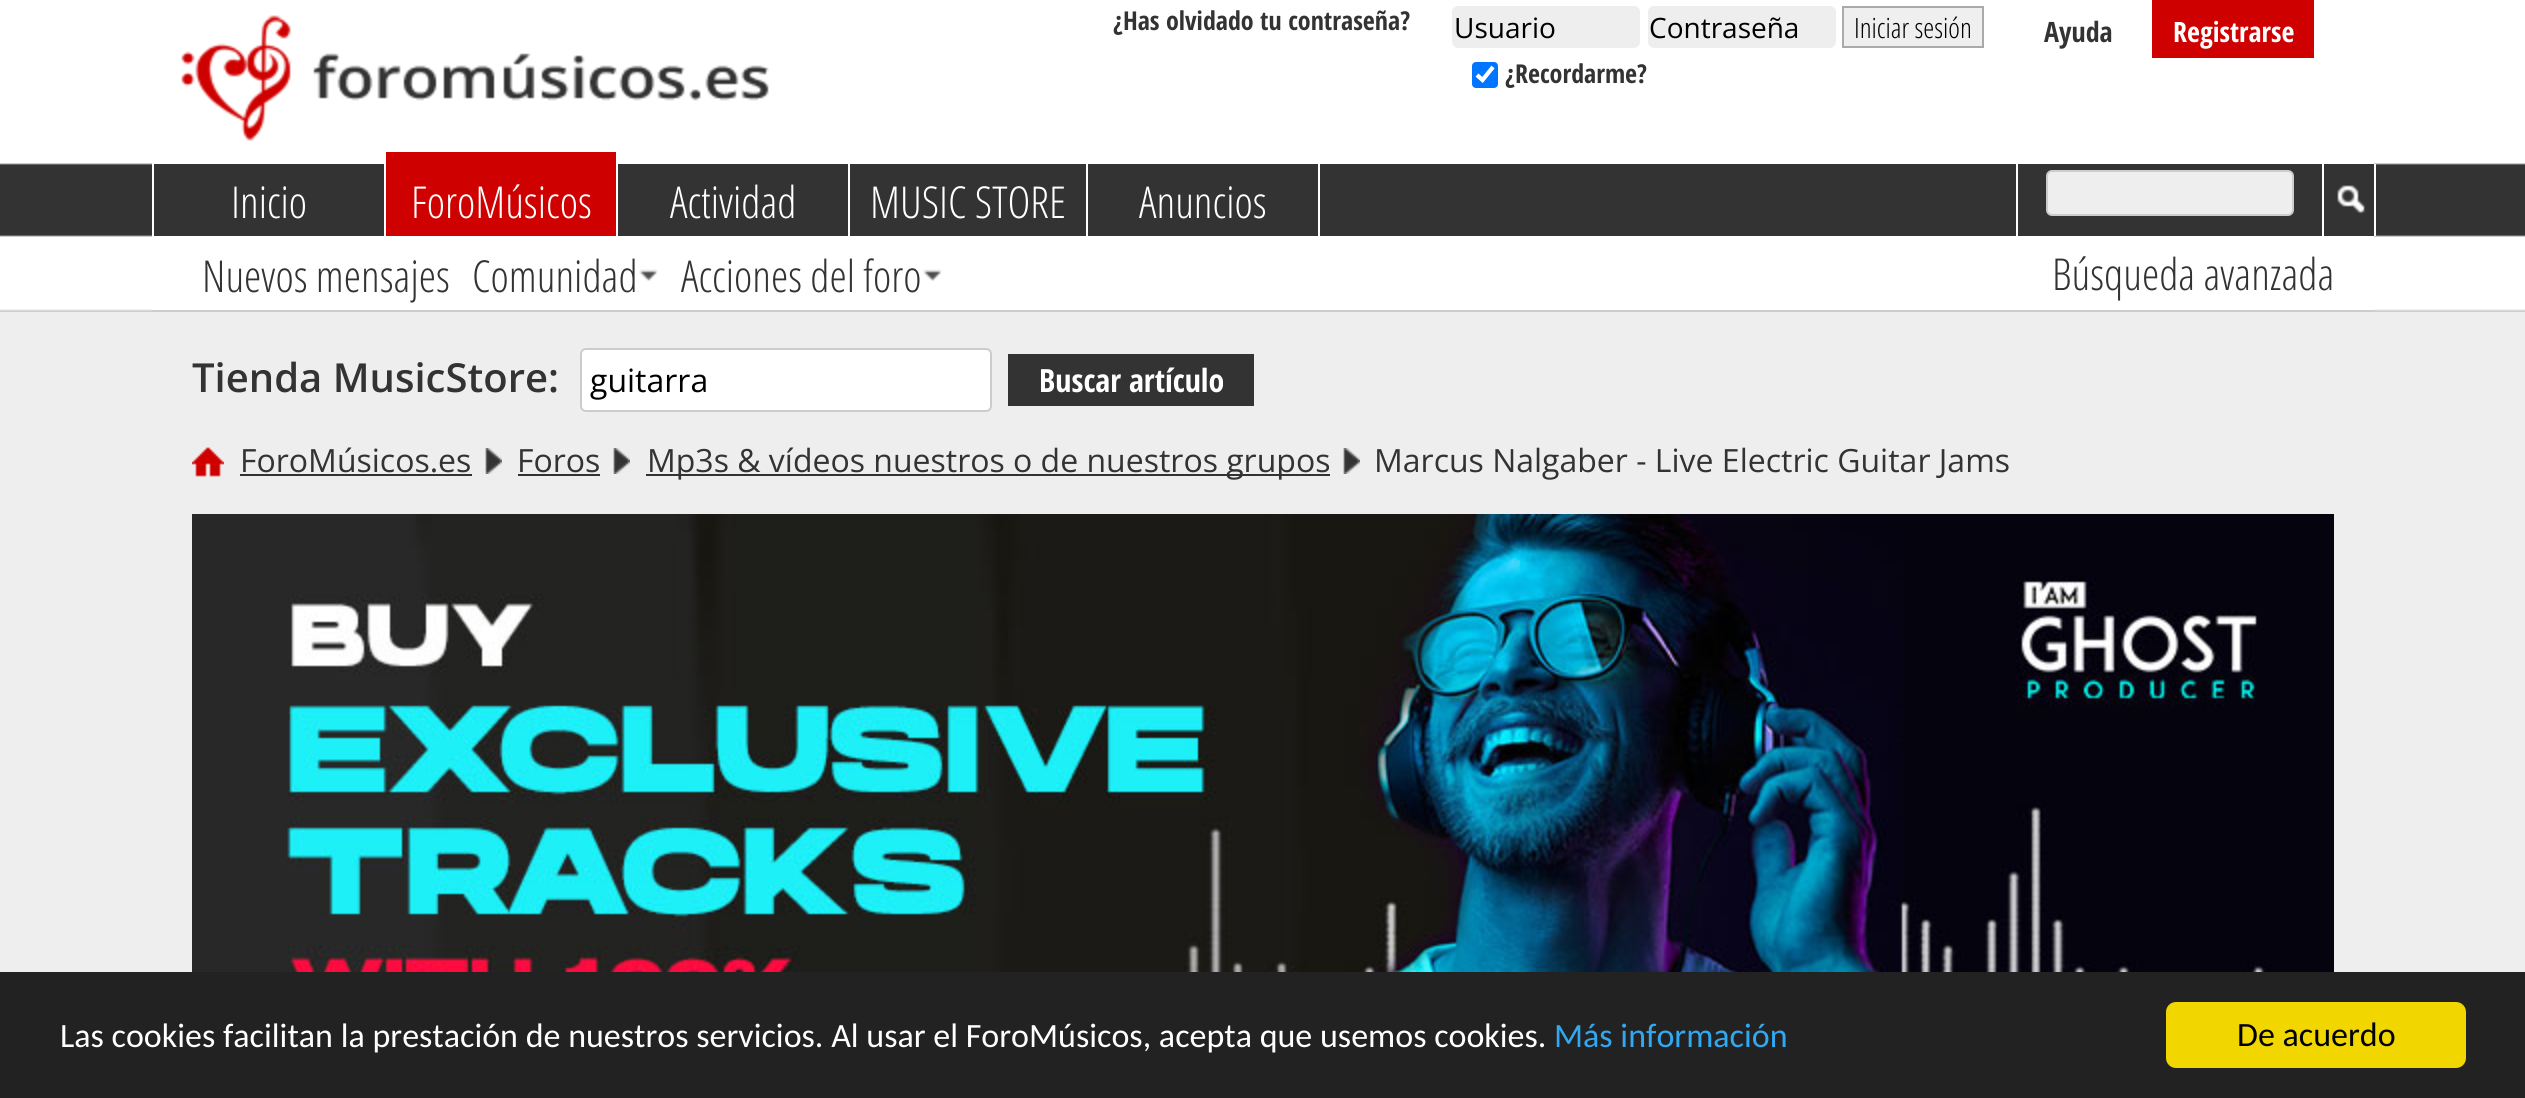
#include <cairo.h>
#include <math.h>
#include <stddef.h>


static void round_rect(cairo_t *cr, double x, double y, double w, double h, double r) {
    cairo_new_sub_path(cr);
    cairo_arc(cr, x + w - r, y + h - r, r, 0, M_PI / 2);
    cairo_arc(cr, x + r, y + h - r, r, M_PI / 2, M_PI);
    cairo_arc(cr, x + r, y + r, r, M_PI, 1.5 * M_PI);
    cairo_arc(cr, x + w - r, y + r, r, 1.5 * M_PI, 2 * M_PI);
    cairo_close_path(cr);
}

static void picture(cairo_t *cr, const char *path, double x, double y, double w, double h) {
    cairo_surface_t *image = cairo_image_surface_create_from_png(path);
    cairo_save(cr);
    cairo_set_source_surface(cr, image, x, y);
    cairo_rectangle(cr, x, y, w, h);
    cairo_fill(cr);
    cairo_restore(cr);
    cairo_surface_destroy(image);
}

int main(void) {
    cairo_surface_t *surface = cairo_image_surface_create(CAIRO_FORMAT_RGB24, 2525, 1098);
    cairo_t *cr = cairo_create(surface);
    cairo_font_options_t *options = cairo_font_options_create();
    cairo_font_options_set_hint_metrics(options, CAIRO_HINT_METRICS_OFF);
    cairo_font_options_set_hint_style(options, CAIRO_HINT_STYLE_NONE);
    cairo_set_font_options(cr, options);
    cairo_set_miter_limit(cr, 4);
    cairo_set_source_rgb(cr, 0.933, 0.933, 0.933);
    cairo_paint(cr);
    picture(cr, "img1.png", 0, 0, 2525, 312);
    cairo_set_source_rgb(cr, 1, 1, 1);
    cairo_rectangle(cr, 152, 163, 2222, 147);
    cairo_fill(cr);
    picture(cr, "img2.png", 181, 15, 588, 126);
    cairo_select_font_face(cr, "Open Sans Condensed", CAIRO_FONT_SLANT_NORMAL, CAIRO_FONT_WEIGHT_BOLD);
    cairo_set_font_size(cr, 26);
    cairo_set_source_rgb(cr, 0.2, 0.2, 0.2);
    cairo_move_to(cr, 1113, 30);
    cairo_show_text(cr, "¿Has olvidado tu contraseña?");
    cairo_set_source_rgb(cr, 0.933, 0.933, 0.933);
    round_rect(cr, 1452, 6, 188, 42, 6);
    cairo_fill(cr);
    cairo_select_font_face(cr, "Open Sans", CAIRO_FONT_SLANT_NORMAL, CAIRO_FONT_WEIGHT_NORMAL);
    cairo_set_font_size(cr, 28);
    cairo_set_source_rgb(cr, 0, 0, 0);
    cairo_move_to(cr, 1454, 38);
    cairo_show_text(cr, "Usuario");
    cairo_set_source_rgb(cr, 0.933, 0.933, 0.933);
    round_rect(cr, 1648, 6, 188, 42, 6);
    cairo_fill(cr);
    cairo_set_source_rgb(cr, 0, 0, 0);
    cairo_move_to(cr, 1649, 38);
    cairo_show_text(cr, "Contraseña");
    cairo_set_source_rgb(cr, 0.937, 0.937, 0.937);
    cairo_rectangle(cr, 1843, 7, 140, 40);
    cairo_fill_preserve(cr);
    cairo_set_source_rgb(cr, 0.667, 0.667, 0.667);
    cairo_stroke(cr);
    cairo_select_font_face(cr, "Open Sans Condensed Light", CAIRO_FONT_SLANT_NORMAL, CAIRO_FONT_WEIGHT_NORMAL);
    cairo_set_source_rgb(cr, 0, 0, 0);
    cairo_move_to(cr, 1854, 38);
    cairo_show_text(cr, "Iniciar sesión");
    cairo_set_source_rgb(cr, 0, 0.459, 1);
    round_rect(cr, 1472, 62, 26, 26, 4);
    cairo_fill(cr);
    cairo_new_path(cr);
    cairo_move_to(cr, 1477, 75);
    cairo_line_to(cr, 1482.5, 80);
    cairo_line_to(cr, 1493, 67);
    cairo_set_source_rgb(cr, 1, 1, 1);
    cairo_set_line_width(cr, 4.2);
    cairo_stroke(cr);
    cairo_select_font_face(cr, "Open Sans Condensed", CAIRO_FONT_SLANT_NORMAL, CAIRO_FONT_WEIGHT_BOLD);
    cairo_set_font_size(cr, 26);
    cairo_set_source_rgb(cr, 0.2, 0.2, 0.2);
    cairo_move_to(cr, 1505, 83);
    cairo_show_text(cr, "¿Recordarme?");
    cairo_set_font_size(cr, 28);
    cairo_move_to(cr, 2044, 42);
    cairo_show_text(cr, "Ayuda");
    cairo_set_source_rgb(cr, 0.812, 0, 0);
    cairo_rectangle(cr, 2152, 0, 162, 58);
    cairo_fill(cr);
    cairo_set_source_rgb(cr, 1, 1, 1);
    cairo_move_to(cr, 2173, 42);
    cairo_show_text(cr, "Registrarse");
    cairo_set_source_rgb(cr, 0.8, 0.8, 0.8);
    cairo_rectangle(cr, 152, 310, 2222, 1);
    cairo_fill(cr);
    cairo_set_source_rgb(cr, 0.2, 0.2, 0.2);
    cairo_rectangle(cr, 154, 164, 2220, 72);
    cairo_fill(cr);
    cairo_set_source_rgb(cr, 1, 1, 1);
    cairo_rectangle(cr, 384, 164, 2, 72);
    cairo_fill(cr);
    cairo_select_font_face(cr, "Open Sans Condensed Light", CAIRO_FONT_SLANT_NORMAL, CAIRO_FONT_WEIGHT_NORMAL);
    cairo_set_font_size(cr, 44);
    cairo_move_to(cr, 231, 218);
    cairo_show_text(cr, "Inicio");
    cairo_rectangle(cr, 616, 164, 2, 72);
    cairo_fill(cr);
    cairo_set_source_rgb(cr, 0.812, 0, 0);
    cairo_rectangle(cr, 386, 152, 230, 84);
    cairo_fill(cr);
    cairo_set_source_rgb(cr, 1, 1, 1);
    cairo_move_to(cr, 411, 218);
    cairo_show_text(cr, "ForoMúsicos");
    cairo_rectangle(cr, 848, 164, 2, 72);
    cairo_fill(cr);
    cairo_move_to(cr, 670, 218);
    cairo_show_text(cr, "Actividad");
    cairo_rectangle(cr, 1086, 164, 2, 72);
    cairo_fill(cr);
    cairo_move_to(cr, 870, 218);
    cairo_show_text(cr, "MUSIC STORE");
    cairo_rectangle(cr, 1318, 164, 2, 72);
    cairo_fill(cr);
    cairo_move_to(cr, 1139, 218);
    cairo_show_text(cr, "Anuncios");
    cairo_set_source_rgb(cr, 0.2, 0.2, 0.2);
    cairo_move_to(cr, 202, 292);
    cairo_show_text(cr, "Nuevos mensajes");
    cairo_move_to(cr, 472, 292);
    cairo_show_text(cr, "Comunidad");
    picture(cr, "img3.png", 639, 269, 19, 12);
    cairo_move_to(cr, 681, 292);
    cairo_show_text(cr, "Acciones del foro");
    picture(cr, "img3.png", 923, 269, 19, 12);
    cairo_set_source_rgb(cr, 1, 1, 1);
    cairo_rectangle(cr, 2016, 164, 2, 72);
    cairo_fill(cr);
    cairo_set_source_rgb(cr, 0.933, 0.933, 0.933);
    round_rect(cr, 2047, 171, 246, 44, 5);
    cairo_fill_preserve(cr);
    cairo_set_source_rgb(cr, 0.8, 0.8, 0.8);
    cairo_set_line_width(cr, 2);
    cairo_stroke(cr);
    cairo_set_source_rgb(cr, 1, 1, 1);
    cairo_rectangle(cr, 2374, 164, 2, 72);
    cairo_fill(cr);
    cairo_rectangle(cr, 2322, 164, 2, 72);
    cairo_fill(cr);
    picture(cr, "img4.png", 2337, 185, 28, 29);
    cairo_set_source_rgb(cr, 0.2, 0.2, 0.2);
    cairo_move_to(cr, 2052, 290);
    cairo_show_text(cr, "Búsqueda avanzada");
    cairo_select_font_face(cr, "Open Sans SemiBold", CAIRO_FONT_SLANT_NORMAL, CAIRO_FONT_WEIGHT_NORMAL);
    cairo_set_font_size(cr, 40);
    cairo_move_to(cr, 192, 392);
    cairo_show_text(cr, "Tienda MusicStore:");
    cairo_set_source_rgb(cr, 1, 1, 1);
    round_rect(cr, 581, 349, 410, 62, 5);
    cairo_fill_preserve(cr);
    cairo_set_source_rgb(cr, 0.8, 0.8, 0.8);
    cairo_stroke(cr);
    cairo_select_font_face(cr, "Open Sans", CAIRO_FONT_SLANT_NORMAL, CAIRO_FONT_WEIGHT_NORMAL);
    cairo_set_font_size(cr, 32);
    cairo_set_source_rgb(cr, 0, 0, 0);
    cairo_move_to(cr, 590, 392);
    cairo_show_text(cr, "guitarra");
    cairo_set_source_rgb(cr, 0.2, 0.2, 0.2);
    cairo_rectangle(cr, 1008, 354, 246, 52);
    cairo_fill(cr);
    cairo_select_font_face(cr, "Open Sans Condensed", CAIRO_FONT_SLANT_NORMAL, CAIRO_FONT_WEIGHT_BOLD);
    cairo_set_source_rgb(cr, 1, 1, 1);
    cairo_move_to(cr, 1039, 392);
    cairo_show_text(cr, "Buscar artículo");
    picture(cr, "img5.png", 192, 447, 32, 30);
    picture(cr, "img6.png", 485, 448, 17, 26);
    cairo_select_font_face(cr, "Open Sans", CAIRO_FONT_SLANT_NORMAL, CAIRO_FONT_WEIGHT_NORMAL);
    cairo_set_source_rgb(cr, 0.2, 0.2, 0.2);
    cairo_move_to(cr, 240, 472);
    cairo_show_text(cr, "ForoMúsicos.es");
    cairo_rectangle(cr, 240, 474, 232, 2);
    cairo_fill(cr);
    picture(cr, "img6.png", 613, 448, 17, 26);
    cairo_move_to(cr, 517, 472);
    cairo_show_text(cr, "Foros");
    cairo_rectangle(cr, 518, 474, 82, 2);
    cairo_fill(cr);
    picture(cr, "img6.png", 1343, 448, 17, 26);
    cairo_rectangle(cr, 646, 474, 684, 2);
    cairo_fill(cr);
    cairo_move_to(cr, 647, 472);
    cairo_show_text(cr, "Mp3s & vídeos nuestros o de nuestros grupos");
    cairo_move_to(cr, 1374, 472);
    cairo_show_text(cr, "Marcus Nalgaber - Live Electric Guitar Jams");
    picture(cr, "img7.png", 192, 514, 2142, 458);
    cairo_set_source_rgb(cr, 0.133, 0.133, 0.133);
    cairo_rectangle(cr, 0, 972, 2525, 126);
    cairo_fill(cr);
    cairo_select_font_face(cr, "Carlito", CAIRO_FONT_SLANT_NORMAL, CAIRO_FONT_WEIGHT_NORMAL);
    cairo_set_font_size(cr, 34);
    cairo_set_source_rgb(cr, 1, 1, 1);
    cairo_move_to(cr, 60, 1047);
    cairo_show_text(cr, "Las cookies facilitan la prestación de nuestros servicios. Al usar el ForoMúsicos, acepta que usemos cookies.");
    cairo_set_source_rgb(cr, 0.192, 0.659, 0.941);
    cairo_move_to(cr, 1554, 1047);
    cairo_show_text(cr, "Más información");
    cairo_set_source_rgb(cr, 0.945, 0.839, 0);
    round_rect(cr, 2166, 1002, 300, 66, 10);
    cairo_fill(cr);
    cairo_set_source_rgb(cr, 0, 0, 0);
    cairo_move_to(cr, 2237, 1046);
    cairo_show_text(cr, "De acuerdo");
    cairo_surface_write_to_png(surface, "page.png");
    cairo_font_options_destroy(options);
    cairo_destroy(cr);
    cairo_surface_destroy(surface);
    return 0;
}
